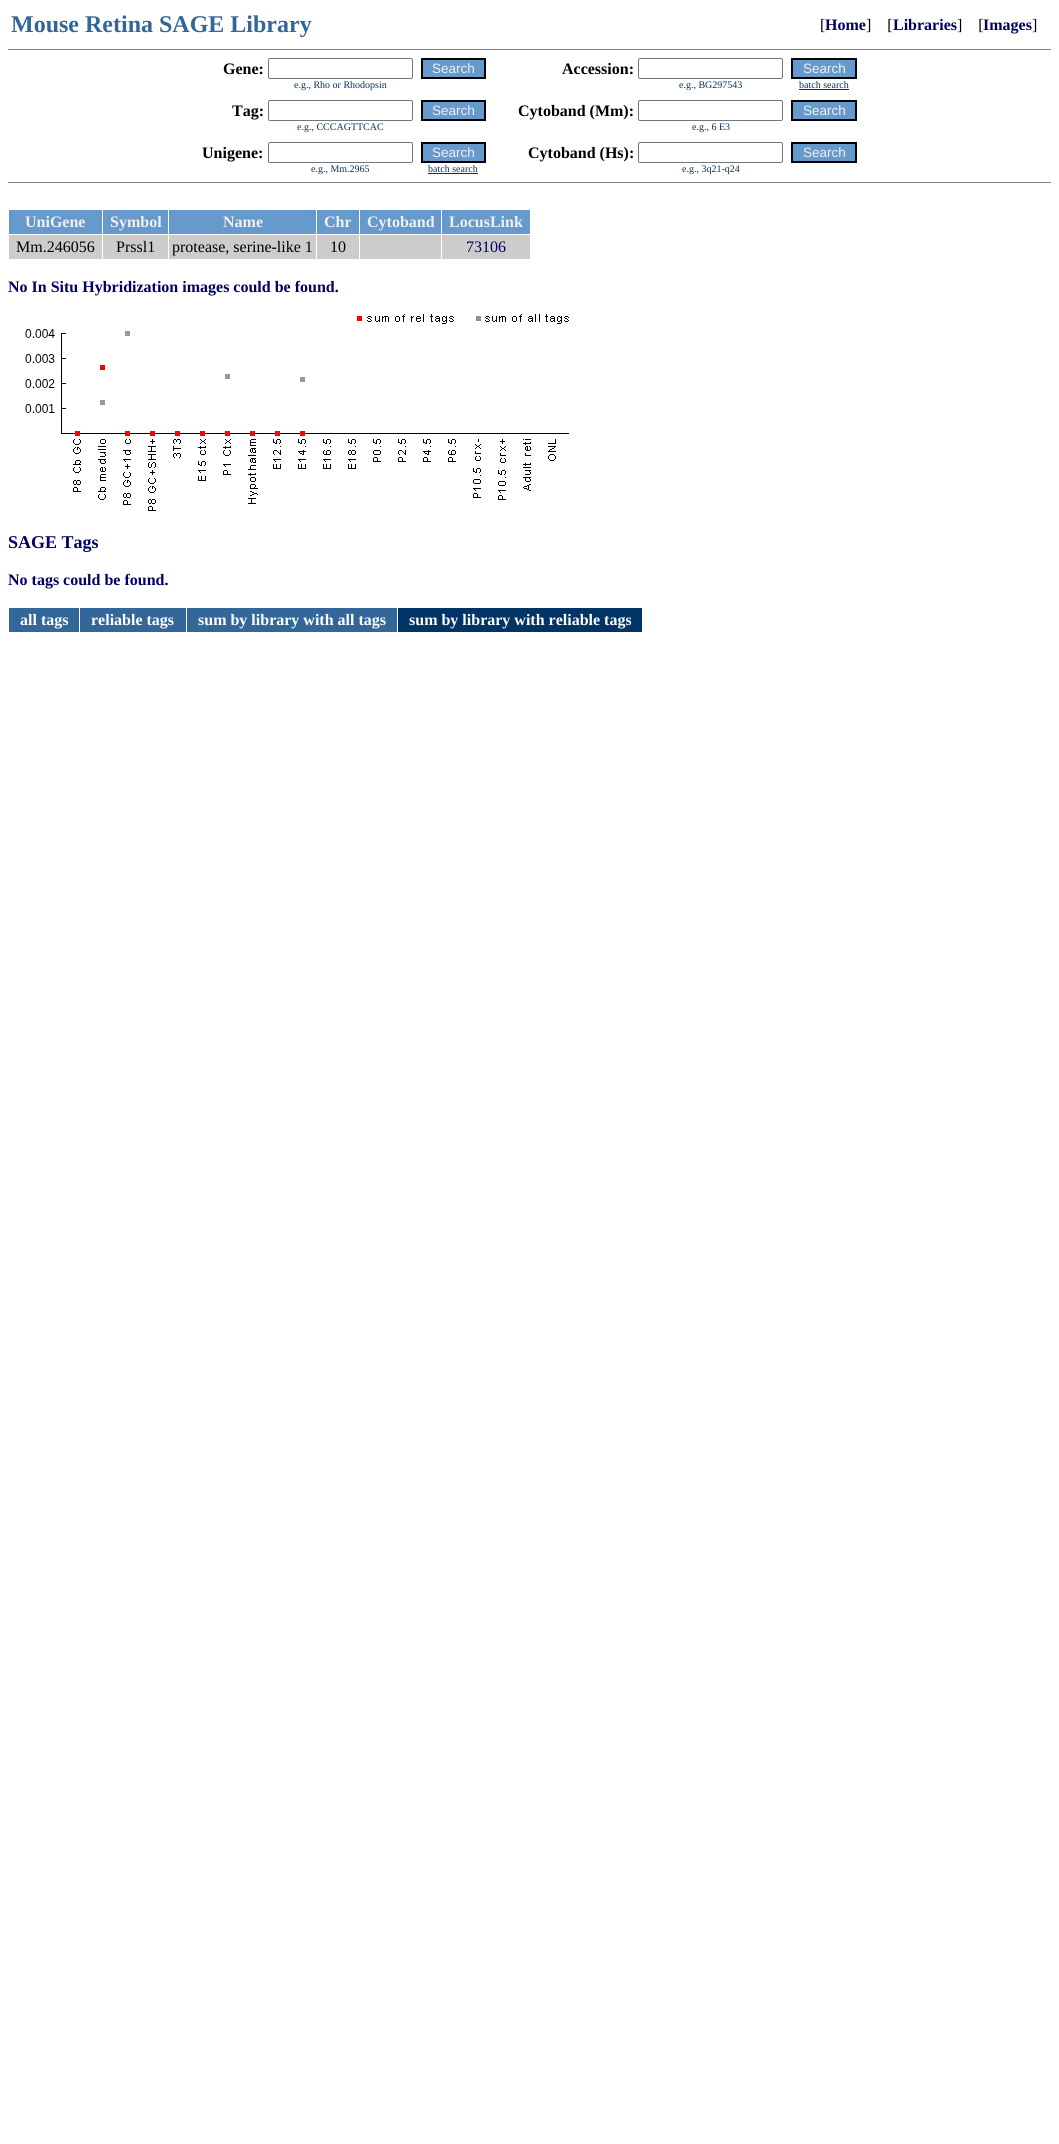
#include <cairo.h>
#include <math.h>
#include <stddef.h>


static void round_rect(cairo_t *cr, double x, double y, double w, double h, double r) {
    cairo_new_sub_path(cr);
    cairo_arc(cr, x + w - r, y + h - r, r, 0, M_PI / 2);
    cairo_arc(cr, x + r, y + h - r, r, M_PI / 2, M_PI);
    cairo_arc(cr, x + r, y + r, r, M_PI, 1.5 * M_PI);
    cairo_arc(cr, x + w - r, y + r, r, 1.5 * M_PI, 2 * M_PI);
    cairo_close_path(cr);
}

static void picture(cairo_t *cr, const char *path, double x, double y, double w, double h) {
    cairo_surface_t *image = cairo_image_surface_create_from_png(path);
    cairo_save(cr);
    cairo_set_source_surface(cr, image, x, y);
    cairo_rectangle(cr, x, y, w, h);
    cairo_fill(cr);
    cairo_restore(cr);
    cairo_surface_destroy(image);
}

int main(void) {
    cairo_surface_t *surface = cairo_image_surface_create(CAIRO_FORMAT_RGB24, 1059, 2144);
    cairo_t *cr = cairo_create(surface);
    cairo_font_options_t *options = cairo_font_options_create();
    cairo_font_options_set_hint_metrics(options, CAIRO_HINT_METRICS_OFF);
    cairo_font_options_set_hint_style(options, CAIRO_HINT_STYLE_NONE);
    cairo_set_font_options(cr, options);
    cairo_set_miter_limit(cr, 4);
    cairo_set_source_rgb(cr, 1, 1, 1);
    cairo_paint(cr);
    cairo_select_font_face(cr, "Liberation Serif", CAIRO_FONT_SLANT_NORMAL, CAIRO_FONT_WEIGHT_BOLD);
    cairo_set_font_size(cr, 24);
    cairo_set_source_rgb(cr, 0.2, 0.4, 0.6);
    cairo_move_to(cr, 11, 32);
    cairo_show_text(cr, "Mouse Retina SAGE Library");
    cairo_select_font_face(cr, "Liberation Serif", CAIRO_FONT_SLANT_NORMAL, CAIRO_FONT_WEIGHT_NORMAL);
    cairo_set_font_size(cr, 16);
    cairo_set_source_rgb(cr, 0, 0, 0);
    cairo_move_to(cr, 820, 30);
    cairo_show_text(cr, "[");
    cairo_select_font_face(cr, "Liberation Serif", CAIRO_FONT_SLANT_NORMAL, CAIRO_FONT_WEIGHT_BOLD);
    cairo_set_source_rgb(cr, 0, 0, 0.4);
    cairo_move_to(cr, 825, 30);
    cairo_show_text(cr, "Home");
    cairo_select_font_face(cr, "Liberation Serif", CAIRO_FONT_SLANT_NORMAL, CAIRO_FONT_WEIGHT_NORMAL);
    cairo_set_source_rgb(cr, 0, 0, 0);
    cairo_move_to(cr, 866, 30);
    cairo_show_text(cr, "]    [");
    cairo_select_font_face(cr, "Liberation Serif", CAIRO_FONT_SLANT_NORMAL, CAIRO_FONT_WEIGHT_BOLD);
    cairo_set_source_rgb(cr, 0, 0, 0.4);
    cairo_move_to(cr, 893, 30);
    cairo_show_text(cr, "Libraries");
    cairo_select_font_face(cr, "Liberation Serif", CAIRO_FONT_SLANT_NORMAL, CAIRO_FONT_WEIGHT_NORMAL);
    cairo_set_source_rgb(cr, 0, 0, 0);
    cairo_move_to(cr, 957, 30);
    cairo_show_text(cr, "]    [");
    cairo_select_font_face(cr, "Liberation Serif", CAIRO_FONT_SLANT_NORMAL, CAIRO_FONT_WEIGHT_BOLD);
    cairo_set_source_rgb(cr, 0, 0, 0.4);
    cairo_move_to(cr, 983, 30);
    cairo_show_text(cr, "Images");
    cairo_select_font_face(cr, "Liberation Serif", CAIRO_FONT_SLANT_NORMAL, CAIRO_FONT_WEIGHT_NORMAL);
    cairo_set_source_rgb(cr, 0, 0, 0);
    cairo_move_to(cr, 1032, 30);
    cairo_show_text(cr, "]");
    cairo_set_source_rgb(cr, 0.502, 0.502, 0.502);
    cairo_rectangle(cr, 8, 49, 1043, 1);
    cairo_fill(cr);
    cairo_select_font_face(cr, "Liberation Serif", CAIRO_FONT_SLANT_NORMAL, CAIRO_FONT_WEIGHT_BOLD);
    cairo_set_source_rgb(cr, 0, 0, 0);
    cairo_move_to(cr, 223, 74);
    cairo_show_text(cr, "Gene:");
    round_rect(cr, 268.5, 58.5, 144, 20, 1.5);
    cairo_set_source_rgb(cr, 0.463, 0.463, 0.463);
    cairo_set_line_width(cr, 1);
    cairo_stroke(cr);
    cairo_set_source_rgb(cr, 0.4, 0.6, 0.8);
    cairo_rectangle(cr, 422, 59, 63, 19);
    cairo_fill_preserve(cr);
    cairo_set_source_rgb(cr, 0, 0, 0);
    cairo_set_line_width(cr, 2);
    cairo_stroke(cr);
    cairo_select_font_face(cr, "Liberation Sans", CAIRO_FONT_SLANT_NORMAL, CAIRO_FONT_WEIGHT_NORMAL);
    cairo_set_font_size(cr, 13.5);
    cairo_set_source_rgb(cr, 0.941, 0.941, 0.941);
    cairo_move_to(cr, 432, 73);
    cairo_show_text(cr, "Search");
    cairo_select_font_face(cr, "Liberation Serif", CAIRO_FONT_SLANT_NORMAL, CAIRO_FONT_WEIGHT_BOLD);
    cairo_set_font_size(cr, 16);
    cairo_set_source_rgb(cr, 0, 0, 0);
    cairo_move_to(cr, 562, 74);
    cairo_show_text(cr, "Accession:");
    round_rect(cr, 638.5, 58.5, 144, 20, 1.5);
    cairo_set_source_rgb(cr, 0.463, 0.463, 0.463);
    cairo_set_line_width(cr, 1);
    cairo_stroke(cr);
    cairo_set_source_rgb(cr, 0.4, 0.6, 0.8);
    cairo_rectangle(cr, 792, 59, 64, 19);
    cairo_fill_preserve(cr);
    cairo_set_source_rgb(cr, 0, 0, 0);
    cairo_set_line_width(cr, 2);
    cairo_stroke(cr);
    cairo_select_font_face(cr, "Liberation Sans", CAIRO_FONT_SLANT_NORMAL, CAIRO_FONT_WEIGHT_NORMAL);
    cairo_set_font_size(cr, 13.5);
    cairo_set_source_rgb(cr, 0.941, 0.941, 0.941);
    cairo_move_to(cr, 803, 73);
    cairo_show_text(cr, "Search");
    cairo_select_font_face(cr, "Liberation Serif", CAIRO_FONT_SLANT_NORMAL, CAIRO_FONT_WEIGHT_NORMAL);
    cairo_set_font_size(cr, 10);
    cairo_set_source_rgb(cr, 0, 0.2, 0.4);
    cairo_move_to(cr, 294, 88);
    cairo_show_text(cr, "e.g., Rho or Rhodopsin");
    cairo_move_to(cr, 679, 88);
    cairo_show_text(cr, "e.g., BG297543");
    cairo_move_to(cr, 799, 88);
    cairo_show_text(cr, "batch search");
    cairo_rectangle(cr, 799, 89, 50, 1);
    cairo_fill(cr);
    cairo_select_font_face(cr, "Liberation Serif", CAIRO_FONT_SLANT_NORMAL, CAIRO_FONT_WEIGHT_BOLD);
    cairo_set_font_size(cr, 16);
    cairo_set_source_rgb(cr, 0, 0, 0);
    cairo_move_to(cr, 232, 116);
    cairo_show_text(cr, "Tag:");
    round_rect(cr, 268.5, 100.5, 144, 20, 1.5);
    cairo_set_source_rgb(cr, 0.463, 0.463, 0.463);
    cairo_set_line_width(cr, 1);
    cairo_stroke(cr);
    cairo_set_source_rgb(cr, 0.4, 0.6, 0.8);
    cairo_rectangle(cr, 422, 101, 63, 19);
    cairo_fill_preserve(cr);
    cairo_set_source_rgb(cr, 0, 0, 0);
    cairo_set_line_width(cr, 2);
    cairo_stroke(cr);
    cairo_select_font_face(cr, "Liberation Sans", CAIRO_FONT_SLANT_NORMAL, CAIRO_FONT_WEIGHT_NORMAL);
    cairo_set_font_size(cr, 13.5);
    cairo_set_source_rgb(cr, 0.941, 0.941, 0.941);
    cairo_move_to(cr, 432, 115);
    cairo_show_text(cr, "Search");
    cairo_select_font_face(cr, "Liberation Serif", CAIRO_FONT_SLANT_NORMAL, CAIRO_FONT_WEIGHT_BOLD);
    cairo_set_font_size(cr, 16);
    cairo_set_source_rgb(cr, 0, 0, 0);
    cairo_move_to(cr, 518, 116);
    cairo_show_text(cr, "Cytoband (Mm):");
    round_rect(cr, 638.5, 100.5, 144, 20, 1.5);
    cairo_set_source_rgb(cr, 0.463, 0.463, 0.463);
    cairo_set_line_width(cr, 1);
    cairo_stroke(cr);
    cairo_set_source_rgb(cr, 0.4, 0.6, 0.8);
    cairo_rectangle(cr, 792, 101, 64, 19);
    cairo_fill_preserve(cr);
    cairo_set_source_rgb(cr, 0, 0, 0);
    cairo_set_line_width(cr, 2);
    cairo_stroke(cr);
    cairo_select_font_face(cr, "Liberation Sans", CAIRO_FONT_SLANT_NORMAL, CAIRO_FONT_WEIGHT_NORMAL);
    cairo_set_font_size(cr, 13.5);
    cairo_set_source_rgb(cr, 0.941, 0.941, 0.941);
    cairo_move_to(cr, 803, 115);
    cairo_show_text(cr, "Search");
    cairo_select_font_face(cr, "Liberation Serif", CAIRO_FONT_SLANT_NORMAL, CAIRO_FONT_WEIGHT_NORMAL);
    cairo_set_font_size(cr, 10);
    cairo_set_source_rgb(cr, 0, 0.2, 0.4);
    cairo_move_to(cr, 297, 130);
    cairo_show_text(cr, "e.g., CCCAGTTCAC");
    cairo_move_to(cr, 692, 130);
    cairo_show_text(cr, "e.g., 6 E3");
    cairo_select_font_face(cr, "Liberation Serif", CAIRO_FONT_SLANT_NORMAL, CAIRO_FONT_WEIGHT_BOLD);
    cairo_set_font_size(cr, 16);
    cairo_set_source_rgb(cr, 0, 0, 0);
    cairo_move_to(cr, 202, 158);
    cairo_show_text(cr, "Unigene:");
    round_rect(cr, 268.5, 142.5, 144, 20, 1.5);
    cairo_set_source_rgb(cr, 0.463, 0.463, 0.463);
    cairo_set_line_width(cr, 1);
    cairo_stroke(cr);
    cairo_set_source_rgb(cr, 0.4, 0.6, 0.8);
    cairo_rectangle(cr, 422, 143, 63, 19);
    cairo_fill_preserve(cr);
    cairo_set_source_rgb(cr, 0, 0, 0);
    cairo_set_line_width(cr, 2);
    cairo_stroke(cr);
    cairo_select_font_face(cr, "Liberation Sans", CAIRO_FONT_SLANT_NORMAL, CAIRO_FONT_WEIGHT_NORMAL);
    cairo_set_font_size(cr, 13.5);
    cairo_set_source_rgb(cr, 0.941, 0.941, 0.941);
    cairo_move_to(cr, 432, 157);
    cairo_show_text(cr, "Search");
    cairo_select_font_face(cr, "Liberation Serif", CAIRO_FONT_SLANT_NORMAL, CAIRO_FONT_WEIGHT_BOLD);
    cairo_set_font_size(cr, 16);
    cairo_set_source_rgb(cr, 0, 0, 0);
    cairo_move_to(cr, 528, 158);
    cairo_show_text(cr, "Cytoband (Hs):");
    round_rect(cr, 638.5, 142.5, 144, 20, 1.5);
    cairo_set_source_rgb(cr, 0.463, 0.463, 0.463);
    cairo_set_line_width(cr, 1);
    cairo_stroke(cr);
    cairo_set_source_rgb(cr, 0.4, 0.6, 0.8);
    cairo_rectangle(cr, 792, 143, 64, 19);
    cairo_fill_preserve(cr);
    cairo_set_source_rgb(cr, 0, 0, 0);
    cairo_set_line_width(cr, 2);
    cairo_stroke(cr);
    cairo_select_font_face(cr, "Liberation Sans", CAIRO_FONT_SLANT_NORMAL, CAIRO_FONT_WEIGHT_NORMAL);
    cairo_set_font_size(cr, 13.5);
    cairo_set_source_rgb(cr, 0.941, 0.941, 0.941);
    cairo_move_to(cr, 803, 157);
    cairo_show_text(cr, "Search");
    cairo_select_font_face(cr, "Liberation Serif", CAIRO_FONT_SLANT_NORMAL, CAIRO_FONT_WEIGHT_NORMAL);
    cairo_set_font_size(cr, 10);
    cairo_set_source_rgb(cr, 0, 0.2, 0.4);
    cairo_move_to(cr, 311, 172);
    cairo_show_text(cr, "e.g., Mm.2965");
    cairo_move_to(cr, 428, 172);
    cairo_show_text(cr, "batch search");
    cairo_rectangle(cr, 428, 173, 50, 1);
    cairo_fill(cr);
    cairo_move_to(cr, 682, 172);
    cairo_show_text(cr, "e.g., 3q21-q24");
    cairo_set_source_rgb(cr, 0.502, 0.502, 0.502);
    cairo_rectangle(cr, 8, 182, 1043, 1);
    cairo_fill(cr);
    cairo_set_source_rgb(cr, 0.4, 0.6, 0.8);
    cairo_rectangle(cr, 9, 210, 93, 24);
    cairo_fill(cr);
    cairo_select_font_face(cr, "Liberation Serif", CAIRO_FONT_SLANT_NORMAL, CAIRO_FONT_WEIGHT_BOLD);
    cairo_set_font_size(cr, 16);
    cairo_set_source_rgb(cr, 0.941, 0.941, 0.941);
    cairo_move_to(cr, 25, 227);
    cairo_show_text(cr, "UniGene");
    cairo_set_source_rgb(cr, 0.4, 0.6, 0.8);
    cairo_rectangle(cr, 103, 210, 65, 24);
    cairo_fill(cr);
    cairo_set_source_rgb(cr, 0.941, 0.941, 0.941);
    cairo_move_to(cr, 110, 227);
    cairo_show_text(cr, "Symbol");
    cairo_set_source_rgb(cr, 0.4, 0.6, 0.8);
    cairo_rectangle(cr, 169, 210, 147, 24);
    cairo_fill(cr);
    cairo_set_source_rgb(cr, 0.941, 0.941, 0.941);
    cairo_move_to(cr, 223, 227);
    cairo_show_text(cr, "Name");
    cairo_set_source_rgb(cr, 0.4, 0.6, 0.8);
    cairo_rectangle(cr, 317, 210, 42, 24);
    cairo_fill(cr);
    cairo_set_source_rgb(cr, 0.941, 0.941, 0.941);
    cairo_move_to(cr, 324, 227);
    cairo_show_text(cr, "Chr");
    cairo_set_source_rgb(cr, 0.4, 0.6, 0.8);
    cairo_rectangle(cr, 360, 210, 81, 24);
    cairo_fill(cr);
    cairo_set_source_rgb(cr, 0.941, 0.941, 0.941);
    cairo_move_to(cr, 367, 227);
    cairo_show_text(cr, "Cytoband");
    cairo_set_source_rgb(cr, 0.4, 0.6, 0.8);
    cairo_rectangle(cr, 442, 210, 88, 24);
    cairo_fill(cr);
    cairo_set_source_rgb(cr, 0.941, 0.941, 0.941);
    cairo_move_to(cr, 449, 227);
    cairo_show_text(cr, "LocusLink");
    cairo_set_source_rgb(cr, 0.8, 0.8, 0.8);
    cairo_rectangle(cr, 9, 235, 93, 24);
    cairo_fill(cr);
    cairo_select_font_face(cr, "Liberation Serif", CAIRO_FONT_SLANT_NORMAL, CAIRO_FONT_WEIGHT_NORMAL);
    cairo_set_source_rgb(cr, 0, 0, 0);
    cairo_move_to(cr, 16, 252);
    cairo_show_text(cr, "Mm.246056");
    cairo_set_source_rgb(cr, 0.8, 0.8, 0.8);
    cairo_rectangle(cr, 103, 235, 65, 24);
    cairo_fill(cr);
    cairo_set_source_rgb(cr, 0, 0, 0);
    cairo_move_to(cr, 116, 252);
    cairo_show_text(cr, "Prssl1");
    cairo_set_source_rgb(cr, 0.8, 0.8, 0.8);
    cairo_rectangle(cr, 169, 235, 147, 24);
    cairo_fill(cr);
    cairo_set_source_rgb(cr, 0, 0, 0);
    cairo_move_to(cr, 172, 252);
    cairo_show_text(cr, "protease, serine-like 1");
    cairo_set_source_rgb(cr, 0.8, 0.8, 0.8);
    cairo_rectangle(cr, 317, 235, 42, 24);
    cairo_fill(cr);
    cairo_set_source_rgb(cr, 0, 0, 0);
    cairo_move_to(cr, 330, 252);
    cairo_show_text(cr, "10");
    cairo_set_source_rgb(cr, 0.8, 0.8, 0.8);
    cairo_rectangle(cr, 360, 235, 81, 24);
    cairo_fill(cr);
    cairo_rectangle(cr, 442, 235, 88, 24);
    cairo_fill(cr);
    cairo_set_source_rgb(cr, 0, 0, 0.4);
    cairo_move_to(cr, 466, 252);
    cairo_show_text(cr, "73106");
    cairo_select_font_face(cr, "Liberation Serif", CAIRO_FONT_SLANT_NORMAL, CAIRO_FONT_WEIGHT_BOLD);
    cairo_move_to(cr, 8, 292);
    cairo_show_text(cr, "No In Situ Hybridization images could be found.");
    picture(cr, "img1.png", 25, 314, 544, 197);
    cairo_set_font_size(cr, 18);
    cairo_move_to(cr, 8, 548);
    cairo_show_text(cr, "SAGE Tags");
    cairo_set_font_size(cr, 16);
    cairo_move_to(cr, 8, 585);
    cairo_show_text(cr, "No tags could be found.");
    cairo_set_source_rgb(cr, 0.2, 0.4, 0.6);
    cairo_rectangle(cr, 9, 608, 70, 24);
    cairo_fill(cr);
    cairo_set_source_rgb(cr, 1, 1, 1);
    cairo_move_to(cr, 20, 625);
    cairo_show_text(cr, "all tags");
    cairo_set_source_rgb(cr, 0.2, 0.4, 0.6);
    cairo_rectangle(cr, 80, 608, 106, 24);
    cairo_fill(cr);
    cairo_set_source_rgb(cr, 1, 1, 1);
    cairo_move_to(cr, 91, 625);
    cairo_show_text(cr, "reliable tags");
    cairo_set_source_rgb(cr, 0.2, 0.4, 0.6);
    cairo_rectangle(cr, 187, 608, 210, 24);
    cairo_fill(cr);
    cairo_set_source_rgb(cr, 1, 1, 1);
    cairo_move_to(cr, 198, 625);
    cairo_show_text(cr, "sum by library with all tags");
    cairo_set_source_rgb(cr, 0, 0.2, 0.4);
    cairo_rectangle(cr, 398, 608, 244, 24);
    cairo_fill(cr);
    cairo_set_source_rgb(cr, 1, 1, 1);
    cairo_move_to(cr, 409, 625);
    cairo_show_text(cr, "sum by library with reliable tags");
    cairo_surface_write_to_png(surface, "page.png");
    cairo_font_options_destroy(options);
    cairo_destroy(cr);
    cairo_surface_destroy(surface);
    return 0;
}
